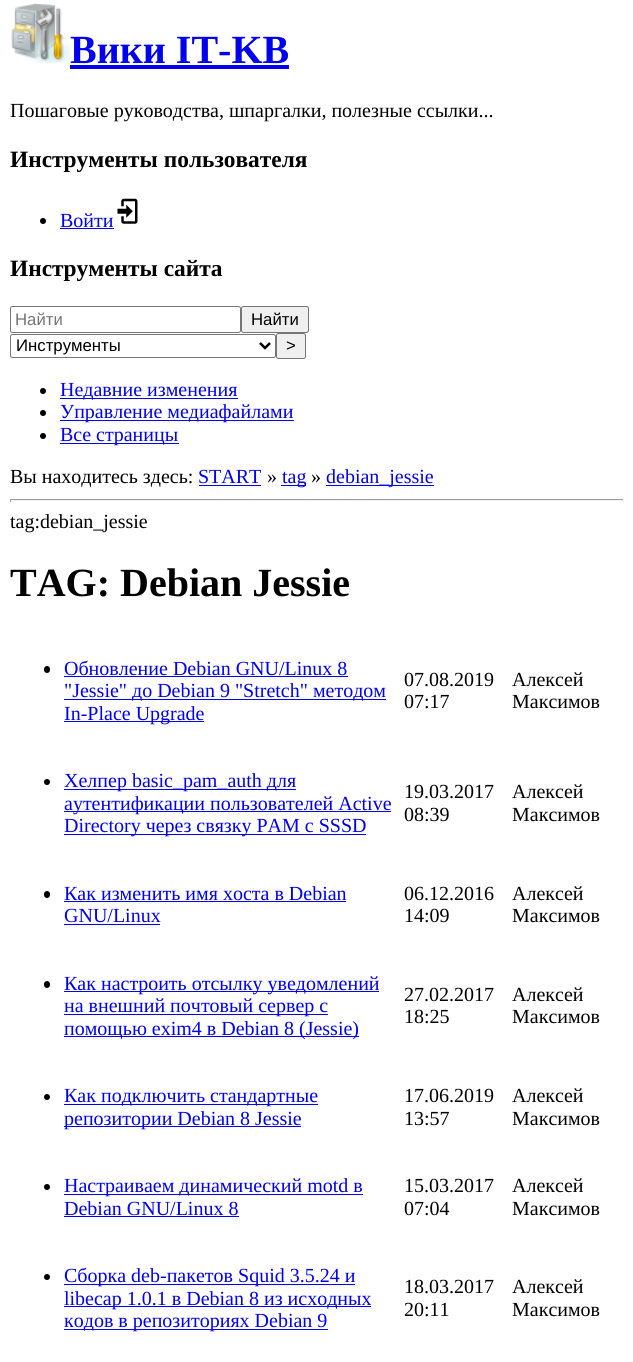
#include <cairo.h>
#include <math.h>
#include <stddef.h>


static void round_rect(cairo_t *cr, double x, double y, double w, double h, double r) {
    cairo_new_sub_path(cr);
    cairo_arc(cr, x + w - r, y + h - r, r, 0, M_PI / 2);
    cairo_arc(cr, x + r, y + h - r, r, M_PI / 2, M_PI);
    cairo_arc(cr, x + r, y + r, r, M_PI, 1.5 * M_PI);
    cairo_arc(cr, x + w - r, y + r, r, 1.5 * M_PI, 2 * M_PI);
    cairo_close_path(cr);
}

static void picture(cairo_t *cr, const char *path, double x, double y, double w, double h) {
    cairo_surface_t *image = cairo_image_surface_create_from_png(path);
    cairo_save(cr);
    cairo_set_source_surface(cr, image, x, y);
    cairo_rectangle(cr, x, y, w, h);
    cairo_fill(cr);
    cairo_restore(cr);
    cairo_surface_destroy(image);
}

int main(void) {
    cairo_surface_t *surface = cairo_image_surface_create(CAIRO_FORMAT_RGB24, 633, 1362);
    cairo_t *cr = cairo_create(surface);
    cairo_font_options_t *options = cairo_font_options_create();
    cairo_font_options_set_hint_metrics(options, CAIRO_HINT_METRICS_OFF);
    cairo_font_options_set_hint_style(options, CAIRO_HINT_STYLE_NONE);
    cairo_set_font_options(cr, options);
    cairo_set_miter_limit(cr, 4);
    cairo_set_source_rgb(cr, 1, 1, 1);
    cairo_paint(cr);
    picture(cr, "img1.png", 11, 2, 59, 61);
    cairo_select_font_face(cr, "Liberation Serif", CAIRO_FONT_SLANT_NORMAL, CAIRO_FONT_WEIGHT_BOLD);
    cairo_set_font_size(cr, 40);
    cairo_set_source_rgb(cr, 0, 0, 0.933);
    cairo_move_to(cr, 70, 63);
    cairo_show_text(cr, "Вики IT-KB");
    cairo_rectangle(cr, 70, 65, 219, 4);
    cairo_fill(cr);
    cairo_select_font_face(cr, "Liberation Serif", CAIRO_FONT_SLANT_NORMAL, CAIRO_FONT_WEIGHT_NORMAL);
    cairo_set_font_size(cr, 20);
    cairo_set_source_rgb(cr, 0, 0, 0);
    cairo_move_to(cr, 10, 117);
    cairo_show_text(cr, "Пошаговые руководства, шпаргалки, полезные ссылки...");
    cairo_select_font_face(cr, "Liberation Serif", CAIRO_FONT_SLANT_NORMAL, CAIRO_FONT_WEIGHT_BOLD);
    cairo_set_font_size(cr, 23.4);
    cairo_move_to(cr, 10, 167);
    cairo_show_text(cr, "Инструменты пользователя");
    cairo_new_path(cr);
    cairo_arc(cr, 43, 221, 3, 0, 2 * M_PI);
    cairo_fill(cr);
    cairo_select_font_face(cr, "Liberation Serif", CAIRO_FONT_SLANT_NORMAL, CAIRO_FONT_WEIGHT_NORMAL);
    cairo_set_font_size(cr, 20);
    cairo_set_source_rgb(cr, 0, 0, 0.933);
    cairo_move_to(cr, 60, 227);
    cairo_show_text(cr, "Войти");
    cairo_rectangle(cr, 60, 228, 54, 1);
    cairo_fill(cr);
    picture(cr, "img2.png", 117, 198, 21, 26);
    cairo_select_font_face(cr, "Liberation Serif", CAIRO_FONT_SLANT_NORMAL, CAIRO_FONT_WEIGHT_BOLD);
    cairo_set_font_size(cr, 23.4);
    cairo_set_source_rgb(cr, 0, 0, 0);
    cairo_move_to(cr, 10, 276);
    cairo_show_text(cr, "Инструменты сайта");
    round_rect(cr, 10.5, 306.5, 230, 26, 2);
    cairo_set_source_rgb(cr, 0.463, 0.463, 0.463);
    cairo_set_line_width(cr, 1);
    cairo_stroke(cr);
    cairo_select_font_face(cr, "Liberation Sans", CAIRO_FONT_SLANT_NORMAL, CAIRO_FONT_WEIGHT_NORMAL);
    cairo_set_font_size(cr, 16.75);
    cairo_set_source_rgb(cr, 0.459, 0.459, 0.459);
    cairo_move_to(cr, 15, 325);
    cairo_show_text(cr, "Найти");
    cairo_set_source_rgb(cr, 0.937, 0.937, 0.937);
    round_rect(cr, 241.5, 306.5, 67, 26, 2);
    cairo_fill_preserve(cr);
    cairo_set_source_rgb(cr, 0.463, 0.463, 0.463);
    cairo_stroke(cr);
    cairo_set_source_rgb(cr, 0, 0, 0);
    cairo_move_to(cr, 251, 325);
    cairo_show_text(cr, "Найти");
    round_rect(cr, 10.5, 334.5, 265, 23, 2);
    cairo_set_source_rgb(cr, 0.463, 0.463, 0.463);
    cairo_stroke(cr);
    cairo_new_path(cr);
    cairo_move_to(cr, 260, 343);
    cairo_line_to(cr, 265, 348);
    cairo_line_to(cr, 270, 343);
    cairo_set_source_rgb(cr, 0, 0, 0);
    cairo_set_line_width(cr, 2.5);
    cairo_stroke(cr);
    cairo_move_to(cr, 16, 351);
    cairo_show_text(cr, "Инструменты");
    cairo_set_source_rgb(cr, 0.937, 0.937, 0.937);
    round_rect(cr, 276.5, 333.5, 29, 25, 2);
    cairo_fill_preserve(cr);
    cairo_set_source_rgb(cr, 0.463, 0.463, 0.463);
    cairo_set_line_width(cr, 1);
    cairo_stroke(cr);
    cairo_set_source_rgb(cr, 0, 0, 0);
    cairo_move_to(cr, 286, 351);
    cairo_show_text(cr, ">");
    cairo_new_path(cr);
    cairo_arc(cr, 43, 391, 3, 0, 2 * M_PI);
    cairo_fill(cr);
    cairo_set_source_rgb(cr, 0, 0, 0.933);
    cairo_rectangle(cr, 60, 398, 178, 1);
    cairo_fill(cr);
    cairo_select_font_face(cr, "Liberation Serif", CAIRO_FONT_SLANT_NORMAL, CAIRO_FONT_WEIGHT_NORMAL);
    cairo_set_font_size(cr, 20);
    cairo_move_to(cr, 60, 396);
    cairo_show_text(cr, "Недавние изменения");
    cairo_set_source_rgb(cr, 0, 0, 0);
    cairo_new_path(cr);
    cairo_arc(cr, 43, 413, 3, 0, 2 * M_PI);
    cairo_fill(cr);
    cairo_set_source_rgb(cr, 0, 0, 0.933);
    cairo_rectangle(cr, 60, 420, 234, 1);
    cairo_fill(cr);
    cairo_move_to(cr, 60, 418);
    cairo_show_text(cr, "Управление медиафайлами");
    cairo_set_source_rgb(cr, 0, 0, 0);
    cairo_new_path(cr);
    cairo_arc(cr, 43, 436, 3, 0, 2 * M_PI);
    cairo_fill(cr);
    cairo_set_source_rgb(cr, 0, 0, 0.933);
    cairo_rectangle(cr, 60, 443, 119, 1);
    cairo_fill(cr);
    cairo_move_to(cr, 60, 441);
    cairo_show_text(cr, "Все страницы");
    cairo_set_source_rgb(cr, 0, 0, 0);
    cairo_move_to(cr, 10, 483);
    cairo_show_text(cr, "Вы находитесь здесь:");
    cairo_set_source_rgb(cr, 0, 0, 0.933);
    cairo_move_to(cr, 198, 483);
    cairo_show_text(cr, "START");
    cairo_rectangle(cr, 199, 485, 62, 1);
    cairo_fill(cr);
    cairo_set_source_rgb(cr, 0, 0, 0);
    cairo_move_to(cr, 267, 483);
    cairo_show_text(cr, "»");
    cairo_set_source_rgb(cr, 0, 0, 0.933);
    cairo_rectangle(cr, 281, 485, 25, 1);
    cairo_fill(cr);
    cairo_move_to(cr, 282, 483);
    cairo_show_text(cr, "tag");
    cairo_set_source_rgb(cr, 0, 0, 0);
    cairo_move_to(cr, 311, 483);
    cairo_show_text(cr, "»");
    cairo_set_source_rgb(cr, 0, 0, 0.933);
    cairo_rectangle(cr, 326, 485, 108, 1);
    cairo_fill(cr);
    cairo_move_to(cr, 326, 483);
    cairo_show_text(cr, "debian_jessie");
    cairo_set_source_rgb(cr, 0.624, 0.624, 0.624);
    cairo_rectangle(cr, 10, 499, 614, 1);
    cairo_fill(cr);
    cairo_set_source_rgb(cr, 0.933, 0.933, 0.933);
    cairo_rectangle(cr, 623, 499, 1, 3);
    cairo_fill(cr);
    cairo_rectangle(cr, 10, 500, 614, 1);
    cairo_fill(cr);
    cairo_set_source_rgb(cr, 0.624, 0.624, 0.624);
    cairo_rectangle(cr, 10, 499, 1, 3);
    cairo_fill(cr);
    cairo_set_source_rgb(cr, 0, 0, 0);
    cairo_move_to(cr, 10, 528);
    cairo_show_text(cr, "tag:debian_jessie");
    cairo_select_font_face(cr, "Liberation Serif", CAIRO_FONT_SLANT_NORMAL, CAIRO_FONT_WEIGHT_BOLD);
    cairo_set_font_size(cr, 40);
    cairo_move_to(cr, 10, 596);
    cairo_show_text(cr, "TAG: Debian Jessie");
    round_rect(cr, 44, 666, 6, 7, 3);
    cairo_fill(cr);
    cairo_select_font_face(cr, "Liberation Serif", CAIRO_FONT_SLANT_NORMAL, CAIRO_FONT_WEIGHT_NORMAL);
    cairo_set_font_size(cr, 20);
    cairo_set_source_rgb(cr, 0, 0, 0.933);
    cairo_move_to(cr, 64, 675);
    cairo_show_text(cr, "Oбновление Debian GNU/Linux 8");
    cairo_rectangle(cr, 64, 676, 284, 1);
    cairo_fill(cr);
    cairo_rectangle(cr, 64, 699, 322, 1);
    cairo_fill(cr);
    cairo_move_to(cr, 64, 697);
    cairo_show_text(cr, "\"Jessie\" до Debian 9 \"Stretch\" методом");
    cairo_rectangle(cr, 64, 721, 140, 1);
    cairo_fill(cr);
    cairo_move_to(cr, 64, 720);
    cairo_show_text(cr, "In-Place Upgrade");
    cairo_set_source_rgb(cr, 0, 0, 0);
    cairo_move_to(cr, 404, 686);
    cairo_show_text(cr, "07.08.2019");
    cairo_move_to(cr, 404, 708);
    cairo_show_text(cr, "07:17");
    cairo_move_to(cr, 512, 686);
    cairo_show_text(cr, "Алексей");
    cairo_move_to(cr, 512, 708);
    cairo_show_text(cr, "Максимов");
    cairo_new_path(cr);
    cairo_arc(cr, 47, 782, 3, 0, 2 * M_PI);
    cairo_fill(cr);
    cairo_set_source_rgb(cr, 0, 0, 0.933);
    cairo_rectangle(cr, 64, 789, 232, 1);
    cairo_fill(cr);
    cairo_move_to(cr, 64, 787);
    cairo_show_text(cr, "Xелпер basic_pam_auth для");
    cairo_rectangle(cr, 64, 811, 327, 1);
    cairo_fill(cr);
    cairo_move_to(cr, 64, 810);
    cairo_show_text(cr, "аутентификации пользователей Active");
    cairo_rectangle(cr, 64, 834, 302, 1);
    cairo_fill(cr);
    cairo_move_to(cr, 64, 832);
    cairo_show_text(cr, "Directory через связку PAM с SSSD");
    cairo_set_source_rgb(cr, 0, 0, 0);
    cairo_move_to(cr, 404, 798);
    cairo_show_text(cr, "19.03.2017");
    cairo_move_to(cr, 404, 821);
    cairo_show_text(cr, "08:39");
    cairo_move_to(cr, 512, 798);
    cairo_show_text(cr, "Алексей");
    cairo_move_to(cr, 512, 821);
    cairo_show_text(cr, "Максимов");
    round_rect(cr, 44, 891, 6, 7, 3);
    cairo_fill(cr);
    cairo_set_source_rgb(cr, 0, 0, 0.933);
    cairo_move_to(cr, 64, 900);
    cairo_show_text(cr, "Как изменить имя хоста в Debian");
    cairo_rectangle(cr, 64, 901, 282, 1);
    cairo_fill(cr);
    cairo_move_to(cr, 64, 922);
    cairo_show_text(cr, "GNU/Linux");
    cairo_rectangle(cr, 64, 924, 96, 1);
    cairo_fill(cr);
    cairo_set_source_rgb(cr, 0, 0, 0);
    cairo_move_to(cr, 404, 900);
    cairo_show_text(cr, "06.12.2016");
    cairo_move_to(cr, 404, 922);
    cairo_show_text(cr, "14:09");
    cairo_move_to(cr, 512, 900);
    cairo_show_text(cr, "Алексей");
    cairo_move_to(cr, 512, 922);
    cairo_show_text(cr, "Максимов");
    round_rect(cr, 44, 981, 6, 7, 3);
    cairo_fill(cr);
    cairo_set_source_rgb(cr, 0, 0, 0.933);
    cairo_rectangle(cr, 64, 991, 315, 1);
    cairo_fill(cr);
    cairo_move_to(cr, 64, 990);
    cairo_show_text(cr, "Как настроить отсылку уведомлений");
    cairo_rectangle(cr, 64, 1014, 264, 1);
    cairo_fill(cr);
    cairo_move_to(cr, 64, 1012);
    cairo_show_text(cr, "на внешний почтовый сервер с");
    cairo_rectangle(cr, 64, 1036, 295, 1);
    cairo_fill(cr);
    cairo_move_to(cr, 64, 1035);
    cairo_show_text(cr, "помощью exim4 в Debian 8 (Jessie)");
    cairo_set_source_rgb(cr, 0, 0, 0);
    cairo_move_to(cr, 404, 1001);
    cairo_show_text(cr, "27.02.2017");
    cairo_move_to(cr, 404, 1023);
    cairo_show_text(cr, "18:25");
    cairo_move_to(cr, 512, 1001);
    cairo_show_text(cr, "Алексей");
    cairo_move_to(cr, 512, 1023);
    cairo_show_text(cr, "Максимов");
    cairo_new_path(cr);
    cairo_arc(cr, 47, 1097, 3, 0, 2 * M_PI);
    cairo_fill(cr);
    cairo_set_source_rgb(cr, 0, 0, 0.933);
    cairo_rectangle(cr, 64, 1104, 254, 1);
    cairo_fill(cr);
    cairo_move_to(cr, 64, 1102);
    cairo_show_text(cr, "Как подключить стандартные");
    cairo_rectangle(cr, 64, 1126, 237, 1);
    cairo_fill(cr);
    cairo_move_to(cr, 64, 1125);
    cairo_show_text(cr, "репозитории Debian 8 Jessie");
    cairo_set_source_rgb(cr, 0, 0, 0);
    cairo_move_to(cr, 404, 1102);
    cairo_show_text(cr, "17.06.2019");
    cairo_move_to(cr, 404, 1125);
    cairo_show_text(cr, "13:57");
    cairo_move_to(cr, 512, 1102);
    cairo_show_text(cr, "Алексей");
    cairo_move_to(cr, 512, 1125);
    cairo_show_text(cr, "Максимов");
    cairo_new_path(cr);
    cairo_arc(cr, 47, 1187, 3, 0, 2 * M_PI);
    cairo_fill(cr);
    cairo_set_source_rgb(cr, 0, 0, 0.933);
    cairo_rectangle(cr, 64, 1194, 299, 1);
    cairo_fill(cr);
    cairo_move_to(cr, 64, 1192);
    cairo_show_text(cr, "Настраиваем динамический motd в");
    cairo_move_to(cr, 64, 1215);
    cairo_show_text(cr, "Debian GNU/Linux 8");
    cairo_rectangle(cr, 64, 1216, 175, 1);
    cairo_fill(cr);
    cairo_set_source_rgb(cr, 0, 0, 0);
    cairo_move_to(cr, 404, 1192);
    cairo_show_text(cr, "15.03.2017");
    cairo_move_to(cr, 404, 1215);
    cairo_show_text(cr, "07:04");
    cairo_move_to(cr, 512, 1192);
    cairo_show_text(cr, "Алексей");
    cairo_move_to(cr, 512, 1215);
    cairo_show_text(cr, "Максимов");
    cairo_new_path(cr);
    cairo_arc(cr, 47, 1277, 3, 0, 2 * M_PI);
    cairo_fill(cr);
    cairo_set_source_rgb(cr, 0, 0, 0.933);
    cairo_rectangle(cr, 64, 1284, 291, 1);
    cairo_fill(cr);
    cairo_move_to(cr, 64, 1282);
    cairo_show_text(cr, "Сборка deb-пакетов Squid 3.5.24 и");
    cairo_rectangle(cr, 64, 1306, 307, 1);
    cairo_fill(cr);
    cairo_move_to(cr, 64, 1305);
    cairo_show_text(cr, "libecap 1.0.1 в Debian 8 из исходных");
    cairo_rectangle(cr, 64, 1329, 264, 1);
    cairo_fill(cr);
    cairo_move_to(cr, 64, 1327);
    cairo_show_text(cr, "кодов в репозиториях Debian 9");
    cairo_set_source_rgb(cr, 0, 0, 0);
    cairo_move_to(cr, 404, 1293);
    cairo_show_text(cr, "18.03.2017");
    cairo_move_to(cr, 404, 1316);
    cairo_show_text(cr, "20:11");
    cairo_move_to(cr, 512, 1293);
    cairo_show_text(cr, "Алексей");
    cairo_move_to(cr, 512, 1316);
    cairo_show_text(cr, "Максимов");
    cairo_surface_write_to_png(surface, "page.png");
    cairo_font_options_destroy(options);
    cairo_destroy(cr);
    cairo_surface_destroy(surface);
    return 0;
}
